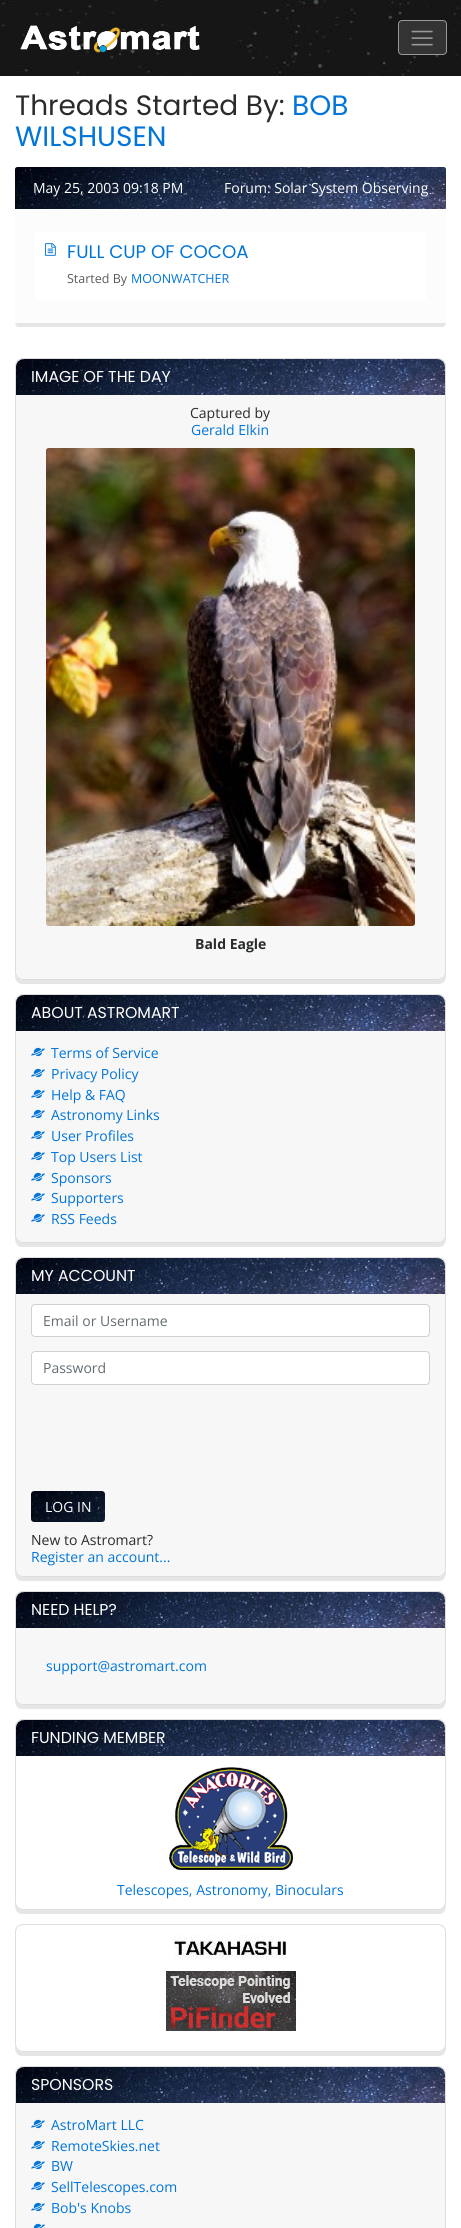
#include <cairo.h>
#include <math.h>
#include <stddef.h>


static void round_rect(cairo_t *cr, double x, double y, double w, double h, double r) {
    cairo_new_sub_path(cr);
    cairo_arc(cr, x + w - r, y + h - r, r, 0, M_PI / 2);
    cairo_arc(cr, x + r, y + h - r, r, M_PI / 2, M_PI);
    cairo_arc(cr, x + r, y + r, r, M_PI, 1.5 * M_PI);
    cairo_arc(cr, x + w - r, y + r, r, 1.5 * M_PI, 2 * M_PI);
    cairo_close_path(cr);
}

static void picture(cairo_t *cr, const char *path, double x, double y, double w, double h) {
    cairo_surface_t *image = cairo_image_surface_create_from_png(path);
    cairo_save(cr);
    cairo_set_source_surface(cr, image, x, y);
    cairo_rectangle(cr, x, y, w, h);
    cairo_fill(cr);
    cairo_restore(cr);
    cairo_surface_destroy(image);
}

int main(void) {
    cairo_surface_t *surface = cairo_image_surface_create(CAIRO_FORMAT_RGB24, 461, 2228);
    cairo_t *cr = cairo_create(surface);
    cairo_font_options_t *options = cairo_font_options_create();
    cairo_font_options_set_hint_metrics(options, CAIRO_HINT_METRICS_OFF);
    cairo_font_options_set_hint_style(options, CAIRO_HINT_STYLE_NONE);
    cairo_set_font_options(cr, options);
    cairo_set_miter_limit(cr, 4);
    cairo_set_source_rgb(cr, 1, 1, 1);
    cairo_paint(cr);
    picture(cr, "img1.png", 0, 0, 461, 76);
    picture(cr, "img2.png", 20, 25, 180, 28);
    cairo_set_source_rgb(cr, 0.2, 0.2, 0.2);
    round_rect(cr, 398.5, 20.5, 48, 34, 3.5);
    cairo_fill_preserve(cr);
    cairo_set_source_rgb(cr, 0.6, 0.6, 0.6);
    cairo_set_line_width(cr, 1);
    cairo_stroke(cr);
    picture(cr, "img3.png", 411, 30, 22, 16);
    cairo_select_font_face(cr, "Poppins", CAIRO_FONT_SLANT_NORMAL, CAIRO_FONT_WEIGHT_NORMAL);
    cairo_set_font_size(cr, 28);
    cairo_set_source_rgb(cr, 0.161, 0.169, 0.173);
    cairo_move_to(cr, 15, 115);
    cairo_show_text(cr, "Threads Started By:");
    cairo_set_source_rgb(cr, 0.008, 0.459, 0.847);
    cairo_move_to(cr, 292, 115);
    cairo_show_text(cr, "BOB");
    cairo_move_to(cr, 15, 146);
    cairo_show_text(cr, "WILSHUSEN");
    cairo_set_source_rgb(cr, 0.902, 0.902, 0.902);
    cairo_new_path(cr);
    cairo_move_to(cr, 15, 320);
    cairo_curve_to(cr, 15, 323, 15, 327, 19, 327);
    cairo_line_to(cr, 443, 327);
    cairo_curve_to(cr, 446, 326, 446, 322, 446, 320);
    cairo_curve_to(cr, 446, 321, 444, 323, 442, 323);
    cairo_line_to(cr, 18, 323);
    cairo_curve_to(cr, 17, 323, 15, 321, 15, 320);
    cairo_close_path(cr);
    cairo_fill(cr);
    picture(cr, "img4.png", 15, 167, 431, 42);
    cairo_select_font_face(cr, "Open Sans", CAIRO_FONT_SLANT_NORMAL, CAIRO_FONT_WEIGHT_NORMAL);
    cairo_set_font_size(cr, 14);
    cairo_set_source_rgb(cr, 1, 1, 1);
    cairo_move_to(cr, 33, 193);
    cairo_show_text(cr, "May 25, 2003 09:18 PM");
    cairo_move_to(cr, 224, 193);
    cairo_show_text(cr, "Forum: Solar System Observing");
    cairo_set_source_rgb(cr, 0.988, 0.988, 0.988);
    cairo_rectangle(cr, 15, 209, 431, 114);
    cairo_fill(cr);
    cairo_set_source_rgb(cr, 1, 1, 1);
    cairo_rectangle(cr, 35, 232, 391, 68);
    cairo_fill(cr);
    picture(cr, "img5.png", 45, 243, 11, 13);
    cairo_select_font_face(cr, "Poppins", CAIRO_FONT_SLANT_NORMAL, CAIRO_FONT_WEIGHT_NORMAL);
    cairo_set_font_size(cr, 18.25);
    cairo_set_source_rgb(cr, 0.008, 0.459, 0.847);
    cairo_move_to(cr, 67, 258);
    cairo_show_text(cr, "FULL CUP OF COCOA");
    cairo_select_font_face(cr, "Open Sans", CAIRO_FONT_SLANT_NORMAL, CAIRO_FONT_WEIGHT_NORMAL);
    cairo_set_font_size(cr, 12.5);
    cairo_set_source_rgb(cr, 0.353, 0.353, 0.353);
    cairo_move_to(cr, 67, 283);
    cairo_show_text(cr, "Started By");
    cairo_set_source_rgb(cr, 0.008, 0.459, 0.847);
    cairo_move_to(cr, 131, 283);
    cairo_show_text(cr, "MOONWATCHER");
    cairo_set_source_rgb(cr, 0.902, 0.902, 0.902);
    cairo_new_path(cr);
    cairo_move_to(cr, 15, 972);
    cairo_curve_to(cr, 15, 977, 15, 983, 21, 984);
    cairo_line_to(cr, 440, 984);
    cairo_curve_to(cr, 446, 983, 446, 977, 446, 972);
    cairo_curve_to(cr, 446, 976, 442, 980, 438, 980);
    cairo_line_to(cr, 23, 980);
    cairo_curve_to(cr, 19, 980, 15, 976, 15, 972);
    cairo_close_path(cr);
    cairo_fill(cr);
    cairo_set_source_rgb(cr, 0.965, 0.965, 0.965);
    round_rect(cr, 15.5, 358.5, 430, 621, 7.5);
    cairo_fill_preserve(cr);
    cairo_set_source_rgb(cr, 0.871, 0.871, 0.871);
    cairo_stroke(cr);
    picture(cr, "img6.png", 16, 359, 429, 36);
    cairo_select_font_face(cr, "Poppins", CAIRO_FONT_SLANT_NORMAL, CAIRO_FONT_WEIGHT_NORMAL);
    cairo_set_font_size(cr, 15.75);
    cairo_set_source_rgb(cr, 1, 1, 1);
    cairo_move_to(cr, 31, 382);
    cairo_show_text(cr, "IMAGE OF THE DAY");
    cairo_select_font_face(cr, "Open Sans", CAIRO_FONT_SLANT_NORMAL, CAIRO_FONT_WEIGHT_NORMAL);
    cairo_set_font_size(cr, 14);
    cairo_set_source_rgb(cr, 0.161, 0.169, 0.173);
    cairo_move_to(cr, 190, 418);
    cairo_show_text(cr, "Captured by");
    cairo_set_source_rgb(cr, 0.008, 0.459, 0.847);
    cairo_move_to(cr, 191, 435);
    cairo_show_text(cr, "Gerald Elkin");
    picture(cr, "img7.png", 46, 448, 369, 478);
    cairo_select_font_face(cr, "Open Sans", CAIRO_FONT_SLANT_NORMAL, CAIRO_FONT_WEIGHT_BOLD);
    cairo_set_source_rgb(cr, 0.161, 0.169, 0.173);
    cairo_move_to(cr, 195, 949);
    cairo_show_text(cr, "Bald Eagle");
    cairo_set_source_rgb(cr, 0.902, 0.902, 0.902);
    cairo_new_path(cr);
    cairo_move_to(cr, 15, 1235);
    cairo_curve_to(cr, 15, 1240, 15, 1246, 21, 1247);
    cairo_line_to(cr, 440, 1247);
    cairo_curve_to(cr, 446, 1246, 446, 1240, 446, 1235);
    cairo_curve_to(cr, 446, 1239, 442, 1243, 438, 1243);
    cairo_line_to(cr, 23, 1243);
    cairo_curve_to(cr, 19, 1243, 15, 1239, 15, 1235);
    cairo_close_path(cr);
    cairo_fill(cr);
    cairo_set_source_rgb(cr, 0.965, 0.965, 0.965);
    round_rect(cr, 15.5, 994.5, 430, 248, 7.5);
    cairo_fill_preserve(cr);
    cairo_set_source_rgb(cr, 0.871, 0.871, 0.871);
    cairo_stroke(cr);
    picture(cr, "img6.png", 16, 995, 429, 36);
    cairo_select_font_face(cr, "Poppins", CAIRO_FONT_SLANT_NORMAL, CAIRO_FONT_WEIGHT_NORMAL);
    cairo_set_font_size(cr, 15.75);
    cairo_set_source_rgb(cr, 1, 1, 1);
    cairo_move_to(cr, 31, 1018);
    cairo_show_text(cr, "ABOUT ASTROMART");
    picture(cr, "img8.png", 31, 1047, 14, 10);
    cairo_select_font_face(cr, "Open Sans", CAIRO_FONT_SLANT_NORMAL, CAIRO_FONT_WEIGHT_NORMAL);
    cairo_set_font_size(cr, 14);
    cairo_set_source_rgb(cr, 0.008, 0.459, 0.847);
    cairo_move_to(cr, 51, 1058);
    cairo_show_text(cr, "Terms of Service");
    picture(cr, "img8.png", 31, 1068, 14, 10);
    cairo_move_to(cr, 51, 1079);
    cairo_show_text(cr, "Privacy Policy");
    picture(cr, "img8.png", 31, 1089, 14, 10);
    cairo_move_to(cr, 51, 1100);
    cairo_show_text(cr, "Help & FAQ");
    picture(cr, "img8.png", 31, 1109, 14, 10);
    cairo_move_to(cr, 51, 1120);
    cairo_show_text(cr, "Astronomy Links");
    picture(cr, "img8.png", 31, 1130, 14, 10);
    cairo_move_to(cr, 51, 1141);
    cairo_show_text(cr, "User Profiles");
    picture(cr, "img8.png", 31, 1151, 14, 10);
    cairo_move_to(cr, 51, 1162);
    cairo_show_text(cr, "Top Users List");
    picture(cr, "img8.png", 31, 1172, 14, 10);
    cairo_move_to(cr, 51, 1183);
    cairo_show_text(cr, "Sponsors");
    picture(cr, "img8.png", 31, 1192, 14, 10);
    cairo_move_to(cr, 51, 1203);
    cairo_show_text(cr, "Supporters");
    picture(cr, "img8.png", 31, 1213, 14, 10);
    cairo_move_to(cr, 51, 1224);
    cairo_show_text(cr, "RSS Feeds");
    cairo_set_source_rgb(cr, 0.902, 0.902, 0.902);
    cairo_new_path(cr);
    cairo_move_to(cr, 15, 1569);
    cairo_curve_to(cr, 15, 1574, 15, 1580, 21, 1581);
    cairo_line_to(cr, 440, 1581);
    cairo_curve_to(cr, 446, 1580, 446, 1574, 446, 1569);
    cairo_curve_to(cr, 446, 1573, 442, 1577, 438, 1577);
    cairo_line_to(cr, 23, 1577);
    cairo_curve_to(cr, 19, 1577, 15, 1573, 15, 1569);
    cairo_close_path(cr);
    cairo_fill(cr);
    cairo_set_source_rgb(cr, 0.965, 0.965, 0.965);
    round_rect(cr, 15.5, 1257.5, 430, 319, 7.5);
    cairo_fill_preserve(cr);
    cairo_set_source_rgb(cr, 0.871, 0.871, 0.871);
    cairo_stroke(cr);
    picture(cr, "img6.png", 16, 1258, 429, 36);
    cairo_select_font_face(cr, "Poppins", CAIRO_FONT_SLANT_NORMAL, CAIRO_FONT_WEIGHT_NORMAL);
    cairo_set_font_size(cr, 15.75);
    cairo_set_source_rgb(cr, 1, 1, 1);
    cairo_move_to(cr, 31, 1281);
    cairo_show_text(cr, "MY ACCOUNT");
    round_rect(cr, 32, 1305, 397, 31, 2.5);
    cairo_fill(cr);
    round_rect(cr, 31.5, 1304.5, 398, 32, 3.5);
    cairo_set_source_rgb(cr, 0.82, 0.82, 0.82);
    cairo_stroke(cr);
    cairo_select_font_face(cr, "Open Sans", CAIRO_FONT_SLANT_NORMAL, CAIRO_FONT_WEIGHT_NORMAL);
    cairo_set_font_size(cr, 14);
    cairo_set_source_rgb(cr, 0.388, 0.424, 0.447);
    cairo_move_to(cr, 43, 1326);
    cairo_show_text(cr, "Email or Username");
    cairo_set_source_rgb(cr, 1, 1, 1);
    round_rect(cr, 32, 1352, 397, 32, 2.5);
    cairo_fill(cr);
    round_rect(cr, 31.5, 1351.5, 398, 33, 3.5);
    cairo_set_source_rgb(cr, 0.82, 0.82, 0.82);
    cairo_stroke(cr);
    cairo_set_source_rgb(cr, 0.388, 0.424, 0.447);
    cairo_move_to(cr, 43, 1373);
    cairo_show_text(cr, "Password");
    picture(cr, "img9.png", 31, 1491, 74, 31);
    cairo_set_source_rgb(cr, 1, 1, 1);
    cairo_move_to(cr, 45, 1512);
    cairo_show_text(cr, "LOG IN");
    cairo_set_source_rgb(cr, 0.161, 0.169, 0.173);
    cairo_move_to(cr, 31, 1545);
    cairo_show_text(cr, "New to Astromart?");
    cairo_set_source_rgb(cr, 0.008, 0.459, 0.847);
    cairo_move_to(cr, 31, 1562);
    cairo_show_text(cr, "Register an account...");
    cairo_set_source_rgb(cr, 0.902, 0.902, 0.902);
    cairo_new_path(cr);
    cairo_move_to(cr, 15, 1697);
    cairo_curve_to(cr, 15, 1702, 15, 1708, 21, 1709);
    cairo_line_to(cr, 440, 1709);
    cairo_curve_to(cr, 446, 1708, 446, 1702, 446, 1697);
    cairo_curve_to(cr, 446, 1701, 442, 1705, 438, 1705);
    cairo_line_to(cr, 23, 1705);
    cairo_curve_to(cr, 19, 1705, 15, 1701, 15, 1697);
    cairo_close_path(cr);
    cairo_fill(cr);
    cairo_set_source_rgb(cr, 0.965, 0.965, 0.965);
    round_rect(cr, 15.5, 1591.5, 430, 113, 7.5);
    cairo_fill_preserve(cr);
    cairo_set_source_rgb(cr, 0.871, 0.871, 0.871);
    cairo_stroke(cr);
    picture(cr, "img6.png", 16, 1592, 429, 36);
    cairo_select_font_face(cr, "Poppins", CAIRO_FONT_SLANT_NORMAL, CAIRO_FONT_WEIGHT_NORMAL);
    cairo_set_font_size(cr, 15.75);
    cairo_set_source_rgb(cr, 1, 1, 1);
    cairo_move_to(cr, 31, 1615);
    cairo_show_text(cr, "NEED HELP?");
    cairo_select_font_face(cr, "Open Sans", CAIRO_FONT_SLANT_NORMAL, CAIRO_FONT_WEIGHT_NORMAL);
    cairo_set_font_size(cr, 14);
    cairo_set_source_rgb(cr, 0.008, 0.459, 0.847);
    cairo_move_to(cr, 46, 1671);
    cairo_show_text(cr, "support@astromart.com");
    cairo_set_source_rgb(cr, 0.902, 0.902, 0.902);
    cairo_new_path(cr);
    cairo_move_to(cr, 15, 1902);
    cairo_curve_to(cr, 15, 1907, 15, 1913, 21, 1914);
    cairo_line_to(cr, 440, 1914);
    cairo_curve_to(cr, 446, 1913, 446, 1907, 446, 1902);
    cairo_curve_to(cr, 446, 1906, 442, 1910, 438, 1910);
    cairo_line_to(cr, 23, 1910);
    cairo_curve_to(cr, 19, 1910, 15, 1906, 15, 1902);
    cairo_close_path(cr);
    cairo_fill(cr);
    cairo_set_source_rgb(cr, 1, 1, 1);
    round_rect(cr, 15.5, 1719.5, 430, 190, 7.5);
    cairo_fill_preserve(cr);
    cairo_set_source_rgb(cr, 0.871, 0.871, 0.871);
    cairo_stroke(cr);
    picture(cr, "img10.png", 16, 1720, 429, 36);
    cairo_select_font_face(cr, "Poppins", CAIRO_FONT_SLANT_NORMAL, CAIRO_FONT_WEIGHT_NORMAL);
    cairo_set_font_size(cr, 15.75);
    cairo_set_source_rgb(cr, 1, 1, 1);
    cairo_move_to(cr, 31, 1743);
    cairo_show_text(cr, "FUNDING MEMBER");
    picture(cr, "img11.png", 169, 1767, 124, 103);
    cairo_select_font_face(cr, "Open Sans", CAIRO_FONT_SLANT_NORMAL, CAIRO_FONT_WEIGHT_NORMAL);
    cairo_set_font_size(cr, 14);
    cairo_set_source_rgb(cr, 0.008, 0.459, 0.847);
    cairo_move_to(cr, 117, 1895);
    cairo_show_text(cr, "Telescopes, Astronomy, Binoculars");
    cairo_set_source_rgb(cr, 0.902, 0.902, 0.902);
    cairo_new_path(cr);
    cairo_move_to(cr, 15, 2044);
    cairo_curve_to(cr, 15, 2049, 15, 2055, 21, 2056);
    cairo_line_to(cr, 440, 2056);
    cairo_curve_to(cr, 446, 2055, 446, 2049, 446, 2044);
    cairo_curve_to(cr, 446, 2048, 442, 2052, 438, 2052);
    cairo_line_to(cr, 23, 2052);
    cairo_curve_to(cr, 19, 2052, 15, 2048, 15, 2044);
    cairo_close_path(cr);
    cairo_fill(cr);
    cairo_set_source_rgb(cr, 1, 1, 1);
    round_rect(cr, 15.5, 1924.5, 430, 127, 7.5);
    cairo_fill_preserve(cr);
    cairo_set_source_rgb(cr, 0.871, 0.871, 0.871);
    cairo_stroke(cr);
    picture(cr, "img12.png", 174, 1935, 113, 24);
    picture(cr, "img13.png", 166, 1971, 130, 60);
    cairo_set_source_rgb(cr, 0.965, 0.965, 0.965);
    round_rect(cr, 15.5, 2066.5, 430, 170, 7.5);
    cairo_fill_preserve(cr);
    cairo_set_source_rgb(cr, 0.871, 0.871, 0.871);
    cairo_stroke(cr);
    picture(cr, "img6.png", 16, 2067, 429, 36);
    cairo_select_font_face(cr, "Poppins", CAIRO_FONT_SLANT_NORMAL, CAIRO_FONT_WEIGHT_NORMAL);
    cairo_set_font_size(cr, 15.75);
    cairo_set_source_rgb(cr, 1, 1, 1);
    cairo_move_to(cr, 31, 2090);
    cairo_show_text(cr, "SPONSORS");
    picture(cr, "img8.png", 31, 2119, 14, 10);
    cairo_select_font_face(cr, "Open Sans", CAIRO_FONT_SLANT_NORMAL, CAIRO_FONT_WEIGHT_NORMAL);
    cairo_set_font_size(cr, 14);
    cairo_set_source_rgb(cr, 0.008, 0.459, 0.847);
    cairo_move_to(cr, 51, 2130);
    cairo_show_text(cr, "AstroMart LLC");
    picture(cr, "img8.png", 31, 2140, 14, 10);
    cairo_move_to(cr, 51, 2151);
    cairo_show_text(cr, "RemoteSkies.net");
    picture(cr, "img8.png", 31, 2160, 14, 10);
    cairo_move_to(cr, 51, 2171);
    cairo_show_text(cr, "BW");
    picture(cr, "img8.png", 31, 2181, 14, 10);
    cairo_move_to(cr, 51, 2192);
    cairo_show_text(cr, "SellTelescopes.com");
    picture(cr, "img8.png", 31, 2202, 14, 10);
    cairo_move_to(cr, 51, 2213);
    cairo_show_text(cr, "Bob's Knobs");
    picture(cr, "img14.png", 33, 2223, 12, 5);
    cairo_surface_write_to_png(surface, "page.png");
    cairo_font_options_destroy(options);
    cairo_destroy(cr);
    cairo_surface_destroy(surface);
    return 0;
}
